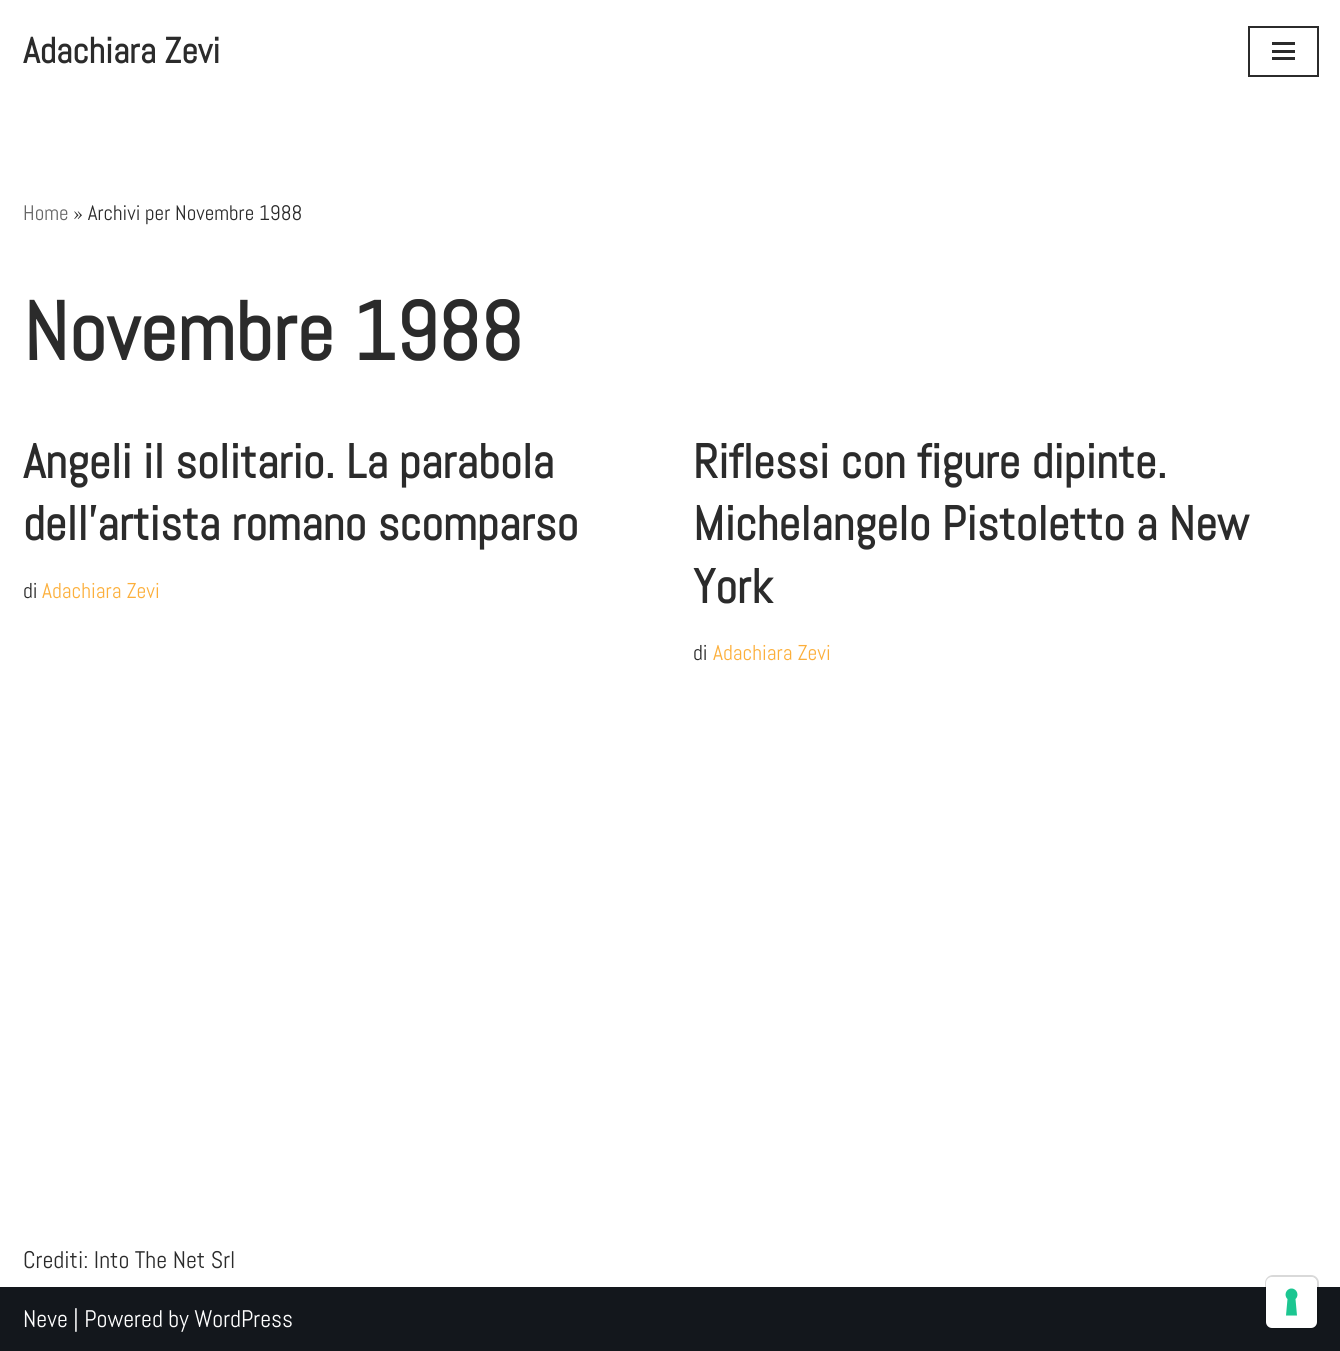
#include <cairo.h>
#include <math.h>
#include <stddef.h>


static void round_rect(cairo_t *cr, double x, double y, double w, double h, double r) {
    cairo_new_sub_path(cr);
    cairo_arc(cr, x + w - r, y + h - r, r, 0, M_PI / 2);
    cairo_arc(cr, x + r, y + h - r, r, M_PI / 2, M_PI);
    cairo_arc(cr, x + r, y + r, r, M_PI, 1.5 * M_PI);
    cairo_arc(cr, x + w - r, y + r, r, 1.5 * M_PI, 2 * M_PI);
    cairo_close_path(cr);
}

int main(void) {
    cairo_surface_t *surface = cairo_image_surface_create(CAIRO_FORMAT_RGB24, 1340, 1351);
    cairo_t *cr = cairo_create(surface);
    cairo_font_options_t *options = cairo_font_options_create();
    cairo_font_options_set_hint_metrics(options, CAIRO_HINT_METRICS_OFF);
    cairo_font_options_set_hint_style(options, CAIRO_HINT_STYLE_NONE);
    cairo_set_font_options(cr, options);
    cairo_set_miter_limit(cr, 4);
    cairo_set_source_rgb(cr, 1, 1, 1);
    cairo_paint(cr);
    cairo_select_font_face(cr, "Abel", CAIRO_FONT_SLANT_NORMAL, CAIRO_FONT_WEIGHT_BOLD);
    cairo_set_font_size(cr, 36);
    cairo_set_source_rgb(cr, 0.169, 0.169, 0.169);
    cairo_move_to(cr, 23, 63);
    cairo_show_text(cr, "Adachiara Zevi");
    cairo_rectangle(cr, 1249, 27, 69, 49);
    cairo_stroke(cr);
    cairo_rectangle(cr, 1272, 42, 23, 3);
    cairo_fill(cr);
    cairo_rectangle(cr, 1272, 50, 23, 3);
    cairo_fill(cr);
    cairo_rectangle(cr, 1272, 57, 23, 3);
    cairo_fill(cr);
    cairo_select_font_face(cr, "Abel", CAIRO_FONT_SLANT_NORMAL, CAIRO_FONT_WEIGHT_NORMAL);
    cairo_set_font_size(cr, 21);
    cairo_set_source_rgb(cr, 0.404, 0.404, 0.404);
    cairo_move_to(cr, 23, 220);
    cairo_show_text(cr, "Home");
    cairo_set_source_rgb(cr, 0.169, 0.169, 0.169);
    cairo_move_to(cr, 73, 220);
    cairo_show_text(cr, "» Archivi per Novembre 1988");
    cairo_select_font_face(cr, "Abel", CAIRO_FONT_SLANT_NORMAL, CAIRO_FONT_WEIGHT_BOLD);
    cairo_set_font_size(cr, 82.5);
    cairo_move_to(cr, 23, 360);
    cairo_show_text(cr, "Novembre 1988");
    cairo_set_font_size(cr, 48);
    cairo_move_to(cr, 23, 478);
    cairo_show_text(cr, "Angeli il solitario. La parabola");
    cairo_move_to(cr, 23, 540);
    cairo_show_text(cr, "dell’artista romano scomparso");
    cairo_select_font_face(cr, "Abel", CAIRO_FONT_SLANT_NORMAL, CAIRO_FONT_WEIGHT_NORMAL);
    cairo_set_font_size(cr, 21.5);
    cairo_move_to(cr, 23, 598);
    cairo_show_text(cr, "di");
    cairo_set_source_rgb(cr, 0.988, 0.686, 0.231);
    cairo_move_to(cr, 42, 598);
    cairo_show_text(cr, "Adachiara Zevi");
    cairo_select_font_face(cr, "Abel", CAIRO_FONT_SLANT_NORMAL, CAIRO_FONT_WEIGHT_BOLD);
    cairo_set_font_size(cr, 48);
    cairo_set_source_rgb(cr, 0.169, 0.169, 0.169);
    cairo_move_to(cr, 693, 478);
    cairo_show_text(cr, "Riflessi con figure dipinte.");
    cairo_move_to(cr, 693, 540);
    cairo_show_text(cr, "Michelangelo Pistoletto a New");
    cairo_move_to(cr, 693, 603);
    cairo_show_text(cr, "York");
    cairo_select_font_face(cr, "Abel", CAIRO_FONT_SLANT_NORMAL, CAIRO_FONT_WEIGHT_NORMAL);
    cairo_set_font_size(cr, 21.5);
    cairo_move_to(cr, 693, 660);
    cairo_show_text(cr, "di");
    cairo_set_source_rgb(cr, 0.988, 0.686, 0.231);
    cairo_move_to(cr, 713, 660);
    cairo_show_text(cr, "Adachiara Zevi");
    cairo_set_font_size(cr, 24);
    cairo_set_source_rgb(cr, 0.169, 0.169, 0.169);
    cairo_move_to(cr, 23, 1268);
    cairo_show_text(cr, "Crediti: Into The Net Srl");
    cairo_set_source_rgb(cr, 0.078, 0.09, 0.11);
    cairo_rectangle(cr, 0, 1287, 1340, 64);
    cairo_fill(cr);
    cairo_set_source_rgb(cr, 1, 1, 1);
    cairo_move_to(cr, 23, 1327);
    cairo_show_text(cr, "Neve | Powered by WordPress");
    round_rect(cr, 1266, 1276, 52, 52, 7);
    cairo_set_source_rgba(cr, 0, 0, 0, 0.15);
    cairo_stroke(cr);
    cairo_set_source_rgb(cr, 1, 1, 1);
    round_rect(cr, 1266, 1277, 51, 51, 6);
    cairo_fill(cr);
    cairo_set_source_rgb(cr, 0.11, 0.776, 0.569);
    cairo_set_fill_rule(cr, CAIRO_FILL_RULE_EVEN_ODD);
    cairo_new_path(cr);
    cairo_move_to(cr, 1291.5, 1288.5);
    cairo_curve_to(cr, 1297, 1288.5, 1299.5, 1295.5, 1295.5, 1299);
    cairo_line_to(cr, 1297, 1315.5);
    cairo_line_to(cr, 1286, 1315.5);
    cairo_line_to(cr, 1287.5, 1299);
    cairo_curve_to(cr, 1283.5, 1295.5, 1286, 1288.5, 1291.5, 1288.5);
    cairo_close_path(cr);
    cairo_fill(cr);
    cairo_surface_write_to_png(surface, "page.png");
    cairo_font_options_destroy(options);
    cairo_destroy(cr);
    cairo_surface_destroy(surface);
    return 0;
}
